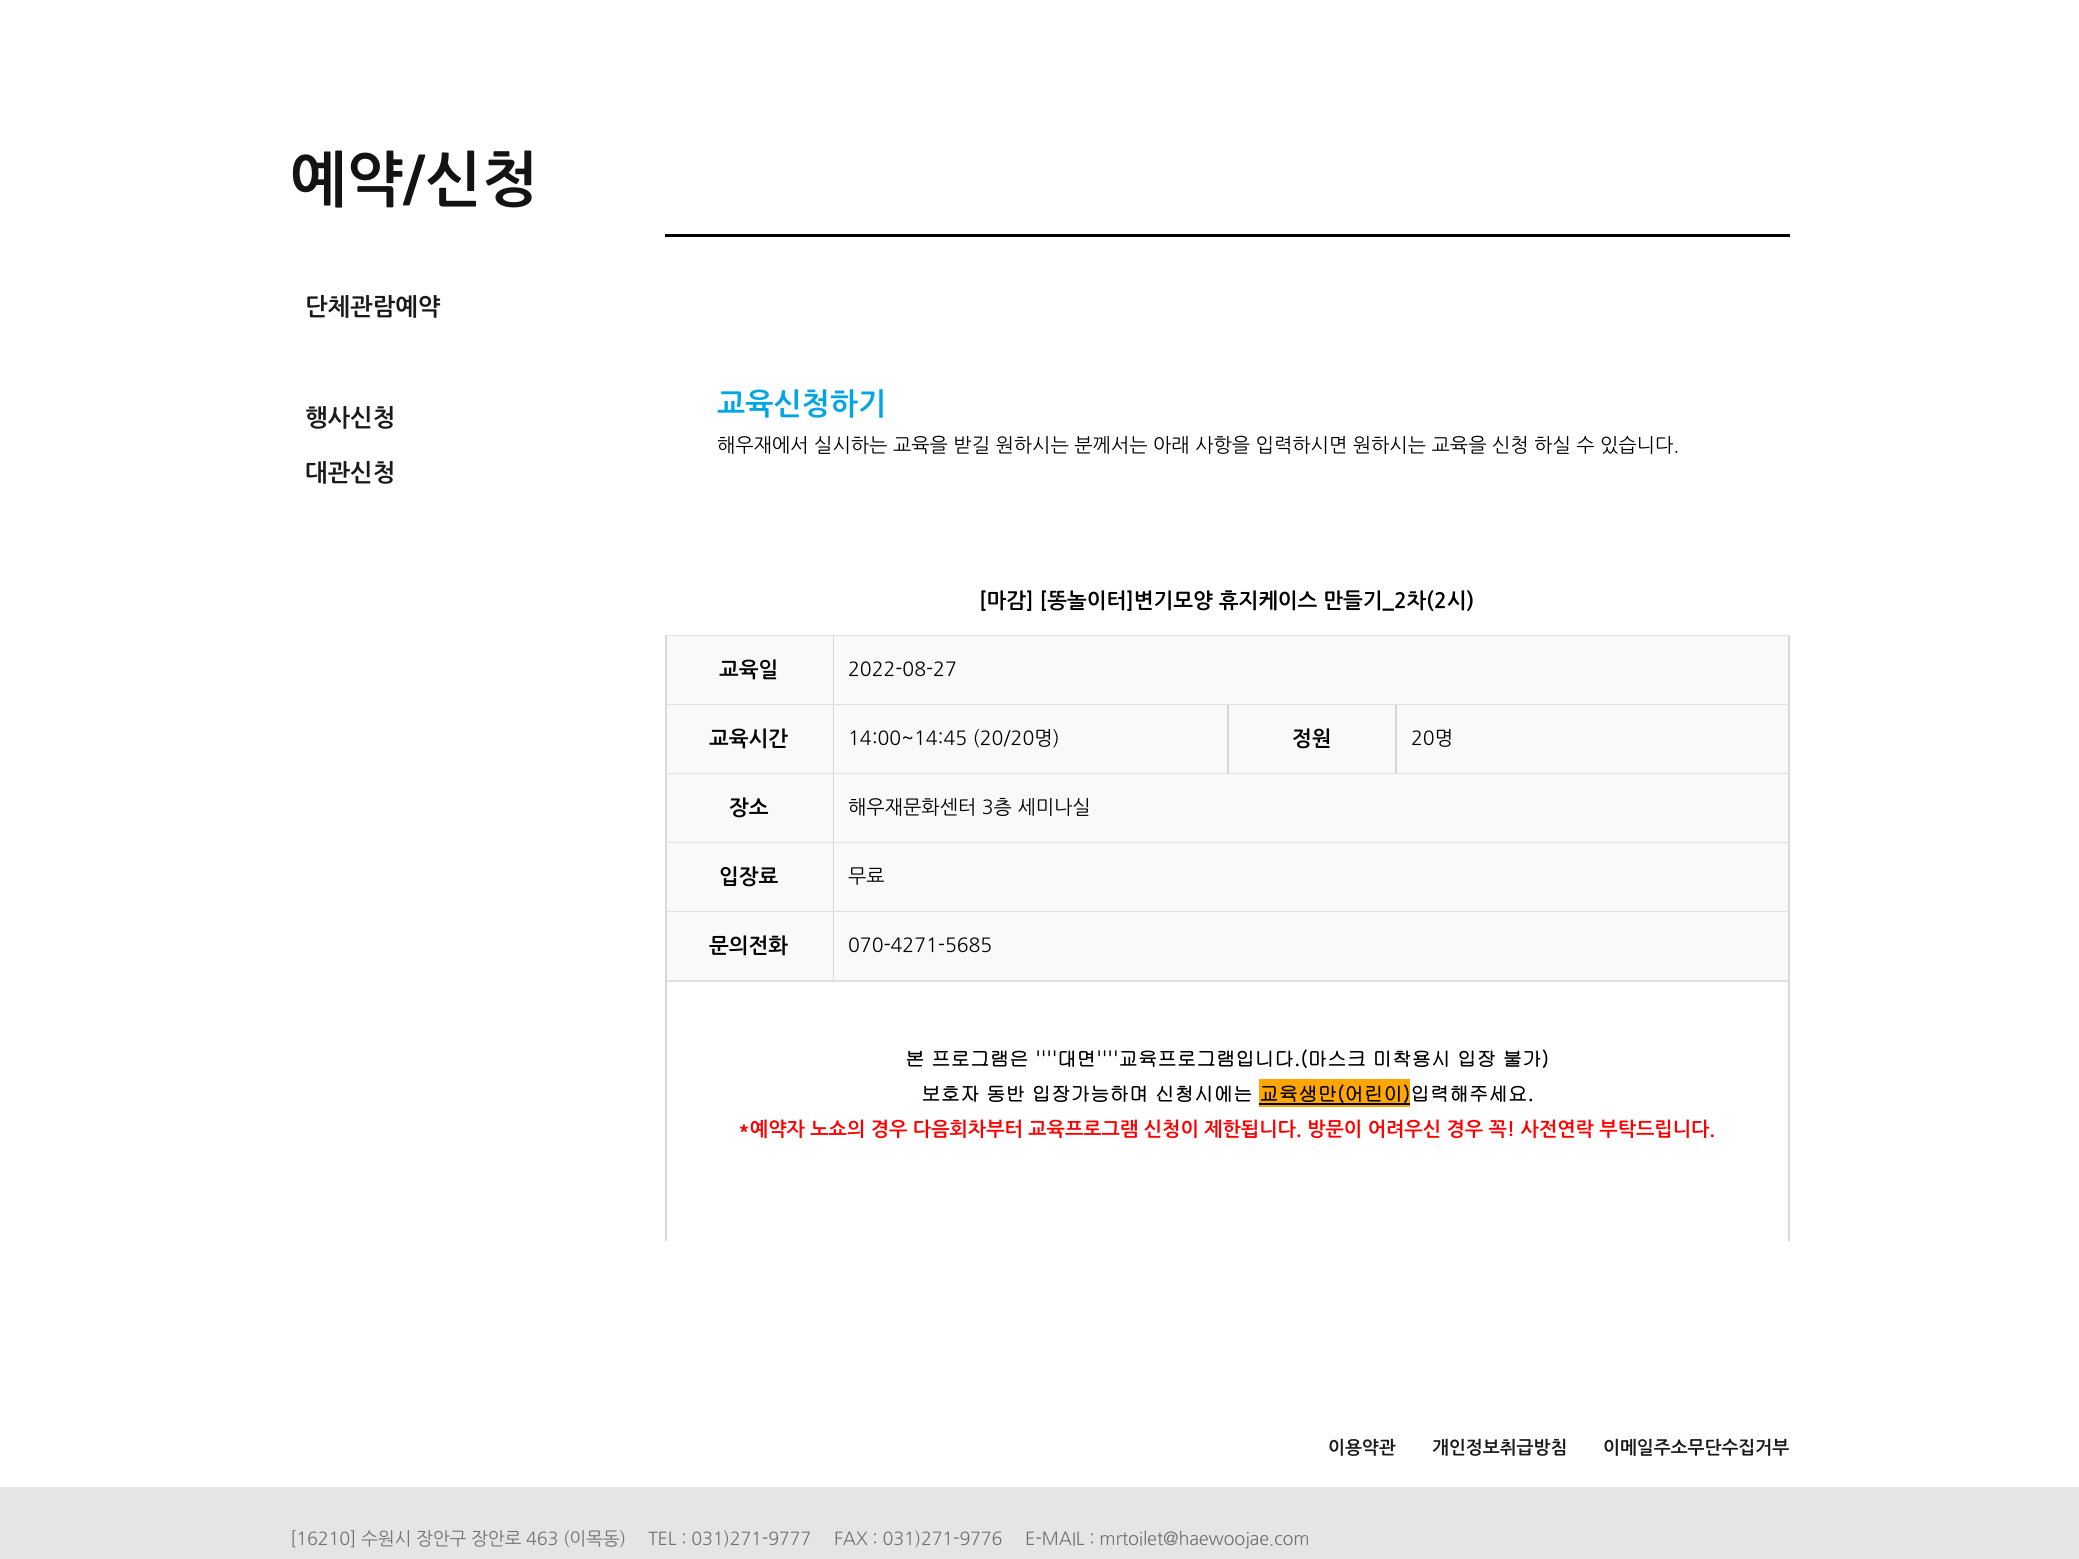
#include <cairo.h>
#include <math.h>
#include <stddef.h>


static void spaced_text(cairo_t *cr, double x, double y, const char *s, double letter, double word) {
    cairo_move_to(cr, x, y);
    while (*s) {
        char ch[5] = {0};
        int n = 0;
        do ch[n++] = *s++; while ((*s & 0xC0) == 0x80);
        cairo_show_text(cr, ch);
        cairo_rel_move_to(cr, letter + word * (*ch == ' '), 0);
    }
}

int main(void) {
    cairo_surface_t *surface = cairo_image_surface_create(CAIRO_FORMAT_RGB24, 2079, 1559);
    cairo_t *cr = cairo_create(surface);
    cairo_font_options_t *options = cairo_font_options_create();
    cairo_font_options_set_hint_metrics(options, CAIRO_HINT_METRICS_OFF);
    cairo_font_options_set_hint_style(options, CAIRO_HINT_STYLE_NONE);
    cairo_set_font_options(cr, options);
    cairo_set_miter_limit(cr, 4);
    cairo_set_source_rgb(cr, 1, 1, 1);
    cairo_paint(cr);
    cairo_select_font_face(cr, "NanumGothic", CAIRO_FONT_SLANT_NORMAL, CAIRO_FONT_WEIGHT_BOLD);
    cairo_set_font_size(cr, 60);
    cairo_set_source_rgb(cr, 0.078, 0.078, 0.078);
    cairo_move_to(cr, 290, 198);
    cairo_show_text(cr, "예약/신청");
    cairo_set_font_size(cr, 24);
    cairo_set_source_rgb(cr, 0.102, 0.102, 0.102);
    cairo_move_to(cr, 305, 314);
    cairo_show_text(cr, "단체관람예약");
    cairo_move_to(cr, 305, 425);
    cairo_show_text(cr, "행사신청");
    cairo_move_to(cr, 305, 480);
    cairo_show_text(cr, "대관신청");
    cairo_set_source_rgb(cr, 0, 0, 0);
    cairo_rectangle(cr, 665, 234, 1125, 3);
    cairo_fill(cr);
    cairo_set_font_size(cr, 30);
    cairo_set_source_rgb(cr, 0, 0.655, 0.894);
    cairo_move_to(cr, 717, 413);
    cairo_show_text(cr, "교육신청하기");
    cairo_select_font_face(cr, "NanumGothic", CAIRO_FONT_SLANT_NORMAL, CAIRO_FONT_WEIGHT_NORMAL);
    cairo_set_font_size(cr, 19.5);
    cairo_set_source_rgb(cr, 0, 0, 0);
    cairo_move_to(cr, 717, 452);
    cairo_show_text(cr, "해우재에서 실시하는 교육을 받길 원하시는 분께서는 아래 사항을 입력하시면 원하시는 교육을 신청 하실 수 있습니다.");
    cairo_set_source_rgb(cr, 0.882, 0.882, 0.882);
    cairo_rectangle(cr, 665, 635, 1125, 1);
    cairo_fill(cr);
    cairo_select_font_face(cr, "NanumGothic", CAIRO_FONT_SLANT_NORMAL, CAIRO_FONT_WEIGHT_BOLD);
    cairo_set_font_size(cr, 21);
    cairo_set_source_rgb(cr, 0, 0, 0);
    cairo_move_to(cr, 979, 607);
    cairo_show_text(cr, "[마감] [똥놀이터]변기모양 휴지케이스 만들기_2차(2시)");
    cairo_set_source_rgb(cr, 0.976, 0.976, 0.976);
    cairo_rectangle(cr, 667, 636, 166, 68);
    cairo_fill(cr);
    cairo_set_source_rgb(cr, 0.847, 0.847, 0.847);
    cairo_rectangle(cr, 833, 636, 1, 345);
    cairo_fill(cr);
    cairo_set_source_rgb(cr, 0.882, 0.882, 0.882);
    cairo_rectangle(cr, 665, 704, 169, 1);
    cairo_fill(cr);
    cairo_set_source_rgb(cr, 0.847, 0.847, 0.847);
    cairo_rectangle(cr, 665, 636, 2, 69);
    cairo_fill(cr);
    cairo_set_source_rgb(cr, 0, 0, 0);
    cairo_move_to(cr, 719, 676);
    cairo_show_text(cr, "교육일");
    cairo_set_source_rgb(cr, 0.976, 0.976, 0.976);
    cairo_rectangle(cr, 834, 636, 954, 68);
    cairo_fill(cr);
    cairo_set_source_rgb(cr, 0.847, 0.847, 0.847);
    cairo_rectangle(cr, 1788, 636, 2, 345);
    cairo_fill(cr);
    cairo_set_source_rgb(cr, 0.882, 0.882, 0.882);
    cairo_rectangle(cr, 834, 704, 956, 1);
    cairo_fill(cr);
    cairo_select_font_face(cr, "NanumGothic", CAIRO_FONT_SLANT_NORMAL, CAIRO_FONT_WEIGHT_NORMAL);
    cairo_set_font_size(cr, 19.5);
    cairo_set_source_rgb(cr, 0, 0, 0);
    cairo_move_to(cr, 848, 676);
    cairo_show_text(cr, "2022-08-27");
    cairo_set_source_rgb(cr, 0.976, 0.976, 0.976);
    cairo_rectangle(cr, 667, 705, 166, 68);
    cairo_fill(cr);
    cairo_set_source_rgb(cr, 0.882, 0.882, 0.882);
    cairo_rectangle(cr, 665, 773, 562, 1);
    cairo_fill(cr);
    cairo_set_source_rgb(cr, 0.847, 0.847, 0.847);
    cairo_rectangle(cr, 665, 705, 2, 69);
    cairo_fill(cr);
    cairo_select_font_face(cr, "NanumGothic", CAIRO_FONT_SLANT_NORMAL, CAIRO_FONT_WEIGHT_BOLD);
    cairo_set_font_size(cr, 21);
    cairo_set_source_rgb(cr, 0, 0, 0);
    cairo_move_to(cr, 709, 745);
    cairo_show_text(cr, "교육시간");
    cairo_set_source_rgb(cr, 0.976, 0.976, 0.976);
    cairo_rectangle(cr, 834, 705, 393, 68);
    cairo_fill(cr);
    cairo_select_font_face(cr, "NanumGothic", CAIRO_FONT_SLANT_NORMAL, CAIRO_FONT_WEIGHT_NORMAL);
    cairo_set_font_size(cr, 19.5);
    cairo_set_source_rgb(cr, 0, 0, 0);
    cairo_move_to(cr, 848, 745);
    cairo_show_text(cr, "14:00~14:45 (20/20명)");
    cairo_set_source_rgb(cr, 0.976, 0.976, 0.976);
    cairo_rectangle(cr, 1229, 705, 166, 68);
    cairo_fill(cr);
    cairo_set_source_rgb(cr, 0.847, 0.847, 0.847);
    cairo_rectangle(cr, 1395, 705, 2, 69);
    cairo_fill(cr);
    cairo_set_source_rgb(cr, 0.882, 0.882, 0.882);
    cairo_rectangle(cr, 1227, 773, 563, 1);
    cairo_fill(cr);
    cairo_set_source_rgb(cr, 0.847, 0.847, 0.847);
    cairo_rectangle(cr, 1227, 705, 2, 69);
    cairo_fill(cr);
    cairo_select_font_face(cr, "NanumGothic", CAIRO_FONT_SLANT_NORMAL, CAIRO_FONT_WEIGHT_BOLD);
    cairo_set_font_size(cr, 21);
    cairo_set_source_rgb(cr, 0, 0, 0);
    cairo_move_to(cr, 1292, 745);
    cairo_show_text(cr, "정원");
    cairo_set_source_rgb(cr, 0.976, 0.976, 0.976);
    cairo_rectangle(cr, 1397, 705, 391, 68);
    cairo_fill(cr);
    cairo_select_font_face(cr, "NanumGothic", CAIRO_FONT_SLANT_NORMAL, CAIRO_FONT_WEIGHT_NORMAL);
    cairo_set_font_size(cr, 19.5);
    cairo_set_source_rgb(cr, 0, 0, 0);
    cairo_move_to(cr, 1411, 745);
    cairo_show_text(cr, "20명");
    cairo_set_source_rgb(cr, 0.976, 0.976, 0.976);
    cairo_rectangle(cr, 667, 774, 166, 68);
    cairo_fill(cr);
    cairo_set_source_rgb(cr, 0.882, 0.882, 0.882);
    cairo_rectangle(cr, 665, 842, 1125, 1);
    cairo_fill(cr);
    cairo_set_source_rgb(cr, 0.847, 0.847, 0.847);
    cairo_rectangle(cr, 665, 774, 2, 69);
    cairo_fill(cr);
    cairo_select_font_face(cr, "NanumGothic", CAIRO_FONT_SLANT_NORMAL, CAIRO_FONT_WEIGHT_BOLD);
    cairo_set_font_size(cr, 21);
    cairo_set_source_rgb(cr, 0, 0, 0);
    cairo_move_to(cr, 729, 814);
    cairo_show_text(cr, "장소");
    cairo_set_source_rgb(cr, 0.976, 0.976, 0.976);
    cairo_rectangle(cr, 834, 774, 954, 68);
    cairo_fill(cr);
    cairo_select_font_face(cr, "NanumGothic", CAIRO_FONT_SLANT_NORMAL, CAIRO_FONT_WEIGHT_NORMAL);
    cairo_set_font_size(cr, 19.5);
    cairo_set_source_rgb(cr, 0, 0, 0);
    cairo_move_to(cr, 848, 814);
    cairo_show_text(cr, "해우재문화센터 3층 세미나실");
    cairo_set_source_rgb(cr, 0.976, 0.976, 0.976);
    cairo_rectangle(cr, 667, 843, 166, 68);
    cairo_fill(cr);
    cairo_set_source_rgb(cr, 0.882, 0.882, 0.882);
    cairo_rectangle(cr, 665, 911, 1125, 1);
    cairo_fill(cr);
    cairo_set_source_rgb(cr, 0.847, 0.847, 0.847);
    cairo_rectangle(cr, 665, 843, 2, 69);
    cairo_fill(cr);
    cairo_select_font_face(cr, "NanumGothic", CAIRO_FONT_SLANT_NORMAL, CAIRO_FONT_WEIGHT_BOLD);
    cairo_set_font_size(cr, 21);
    cairo_set_source_rgb(cr, 0, 0, 0);
    cairo_move_to(cr, 719, 883);
    cairo_show_text(cr, "입장료");
    cairo_set_source_rgb(cr, 0.976, 0.976, 0.976);
    cairo_rectangle(cr, 834, 843, 954, 68);
    cairo_fill(cr);
    cairo_select_font_face(cr, "NanumGothic", CAIRO_FONT_SLANT_NORMAL, CAIRO_FONT_WEIGHT_NORMAL);
    cairo_set_font_size(cr, 19.5);
    cairo_set_source_rgb(cr, 0, 0, 0);
    cairo_move_to(cr, 848, 883);
    cairo_show_text(cr, "무료");
    cairo_set_source_rgb(cr, 0.976, 0.976, 0.976);
    cairo_rectangle(cr, 667, 912, 166, 68);
    cairo_fill(cr);
    cairo_set_source_rgb(cr, 0.882, 0.882, 0.882);
    cairo_rectangle(cr, 665, 980, 1125, 2);
    cairo_fill(cr);
    cairo_set_source_rgb(cr, 0.847, 0.847, 0.847);
    cairo_rectangle(cr, 665, 912, 2, 329);
    cairo_fill(cr);
    cairo_select_font_face(cr, "NanumGothic", CAIRO_FONT_SLANT_NORMAL, CAIRO_FONT_WEIGHT_BOLD);
    cairo_set_font_size(cr, 21);
    cairo_set_source_rgb(cr, 0, 0, 0);
    cairo_move_to(cr, 709, 952);
    cairo_show_text(cr, "문의전화");
    cairo_set_source_rgb(cr, 0.976, 0.976, 0.976);
    cairo_rectangle(cr, 834, 912, 954, 68);
    cairo_fill(cr);
    cairo_select_font_face(cr, "NanumGothic", CAIRO_FONT_SLANT_NORMAL, CAIRO_FONT_WEIGHT_NORMAL);
    cairo_set_font_size(cr, 19.5);
    cairo_set_source_rgb(cr, 0, 0, 0);
    cairo_move_to(cr, 848, 952);
    cairo_show_text(cr, "070-4271-5685");
    cairo_set_source_rgb(cr, 0.847, 0.847, 0.847);
    cairo_rectangle(cr, 1788, 981, 2, 260);
    cairo_fill(cr);
    cairo_select_font_face(cr, "Gulim", CAIRO_FONT_SLANT_NORMAL, CAIRO_FONT_WEIGHT_BOLD);
    cairo_set_source_rgb(cr, 0, 0, 0);
    cairo_move_to(cr, 905, 1066);
    cairo_show_text(cr, "본 프로그램은 ''''대면''''교육프로그램입니다.(마스크 미착용시 입장 불가)");
    cairo_move_to(cr, 921, 1101);
    cairo_show_text(cr, "보호자 동반 입장가능하며 신청시에는");
    cairo_set_source_rgb(cr, 1, 0.655, 0);
    cairo_rectangle(cr, 1259, 1079, 151, 28);
    cairo_fill(cr);
    cairo_set_source_rgb(cr, 0, 0, 0);
    cairo_move_to(cr, 1259, 1101);
    cairo_show_text(cr, "교육생만(어린이)입력해주세요.");
    cairo_rectangle(cr, 1259, 1103, 151, 2);
    cairo_fill(cr);
    cairo_select_font_face(cr, "NanumGothic", CAIRO_FONT_SLANT_NORMAL, CAIRO_FONT_WEIGHT_BOLD);
    cairo_set_source_rgb(cr, 1, 0, 0);
    cairo_move_to(cr, 738, 1135);
    cairo_show_text(cr, "*예약자 노쇼의 경우 다음회차부터 교육프로그램 신청이 제한됩니다. 방문이 어려우신 경우 꼭! 사전연락 부탁드립니다.");
    cairo_set_font_size(cr, 18);
    cairo_set_source_rgb(cr, 0.102, 0.102, 0.102);
    cairo_move_to(cr, 1328, 1453);
    cairo_show_text(cr, "이용약관");
    cairo_move_to(cr, 1432, 1453);
    cairo_show_text(cr, "개인정보취급방침");
    cairo_move_to(cr, 1603, 1453);
    cairo_show_text(cr, "이메일주소무단수집거부");
    cairo_set_source_rgb(cr, 0.898, 0.898, 0.898);
    cairo_rectangle(cr, 0, 1487, 2079, 72);
    cairo_fill(cr);
    cairo_select_font_face(cr, "NanumGothic", CAIRO_FONT_SLANT_NORMAL, CAIRO_FONT_WEIGHT_NORMAL);
    cairo_set_source_rgb(cr, 0.435, 0.447, 0.459);
    spaced_text(cr, 290, 1545, "[16210] 수원시 장안구 장안로 463 (이목동)", -0.2, 0);
    spaced_text(cr, 648, 1545, "TEL : 031)271-9777", -0.2, 0);
    spaced_text(cr, 834, 1545, "FAX : 031)271-9776", -0.2, 0);
    spaced_text(cr, 1025, 1545, "E-MAIL : mrtoilet@haewoojae.com", -0.2, 0);
    cairo_surface_write_to_png(surface, "page.png");
    cairo_font_options_destroy(options);
    cairo_destroy(cr);
    cairo_surface_destroy(surface);
    return 0;
}
